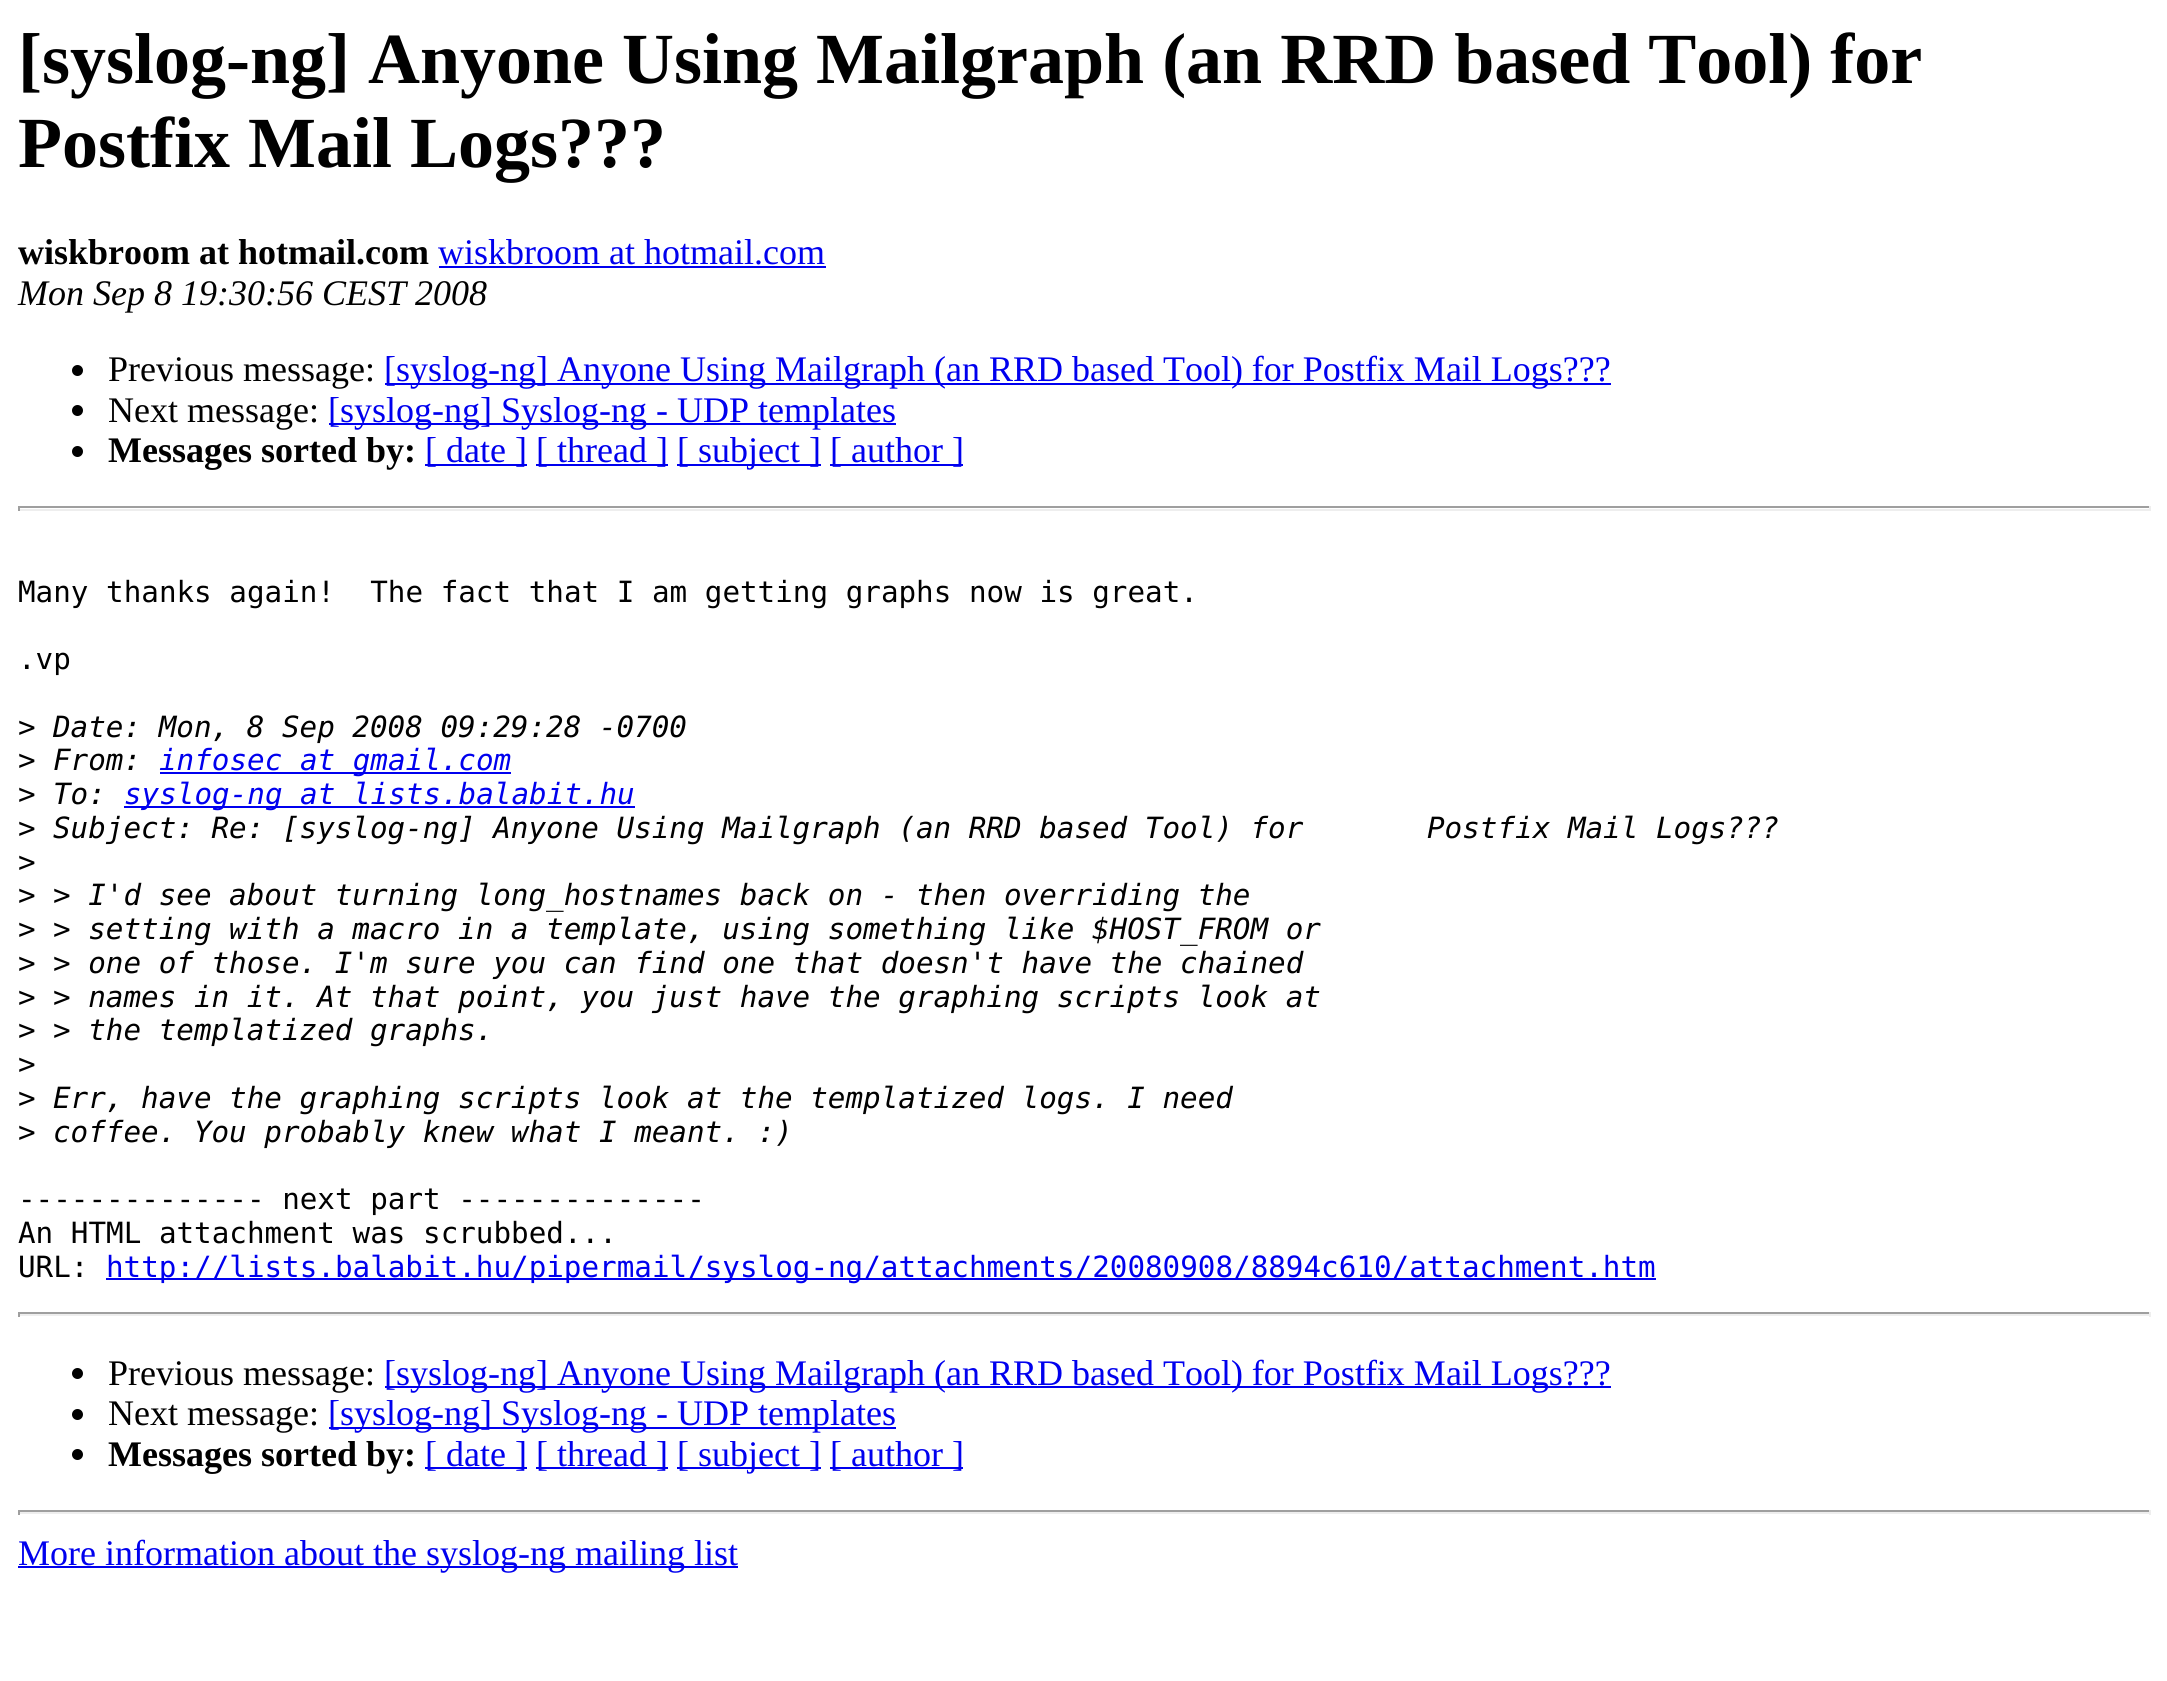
#include <cairo.h>
#include <math.h>
#include <stddef.h>


int main(void) {
    cairo_surface_t *surface = cairo_image_surface_create(CAIRO_FORMAT_RGB24, 2167, 1681);
    cairo_t *cr = cairo_create(surface);
    cairo_font_options_t *options = cairo_font_options_create();
    cairo_font_options_set_hint_metrics(options, CAIRO_HINT_METRICS_OFF);
    cairo_font_options_set_hint_style(options, CAIRO_HINT_STYLE_NONE);
    cairo_set_font_options(cr, options);
    cairo_set_miter_limit(cr, 4);
    cairo_set_source_rgb(cr, 1, 1, 1);
    cairo_paint(cr);
    cairo_select_font_face(cr, "Liberation Serif", CAIRO_FONT_SLANT_NORMAL, CAIRO_FONT_WEIGHT_BOLD);
    cairo_set_font_size(cr, 72);
    cairo_set_source_rgb(cr, 0, 0, 0);
    cairo_move_to(cr, 18, 83);
    cairo_show_text(cr, "[syslog-ng] Anyone Using Mailgraph (an RRD based Tool) for");
    cairo_move_to(cr, 18, 167);
    cairo_show_text(cr, "Postfix Mail Logs?\077?");
    cairo_set_font_size(cr, 36);
    cairo_move_to(cr, 18, 264);
    cairo_show_text(cr, "wiskbroom at hotmail.com");
    cairo_select_font_face(cr, "Liberation Serif", CAIRO_FONT_SLANT_NORMAL, CAIRO_FONT_WEIGHT_NORMAL);
    cairo_set_source_rgb(cr, 0, 0, 0.933);
    cairo_move_to(cr, 438, 264);
    cairo_show_text(cr, "wiskbroom at hotmail.com");
    cairo_rectangle(cr, 439, 266, 387, 2);
    cairo_fill(cr);
    cairo_select_font_face(cr, "Liberation Serif", CAIRO_FONT_SLANT_ITALIC, CAIRO_FONT_WEIGHT_NORMAL);
    cairo_set_source_rgb(cr, 0, 0, 0);
    cairo_move_to(cr, 18, 305);
    cairo_show_text(cr, "Mon Sep 8 19:30:56 CEST 2008");
    cairo_new_path(cr);
    cairo_arc(cr, 77.5, 370.5, 5.5, 0, 2 * M_PI);
    cairo_fill(cr);
    cairo_select_font_face(cr, "Liberation Serif", CAIRO_FONT_SLANT_NORMAL, CAIRO_FONT_WEIGHT_NORMAL);
    cairo_move_to(cr, 108, 381);
    cairo_show_text(cr, "Previous message:");
    cairo_set_source_rgb(cr, 0, 0, 0.933);
    cairo_rectangle(cr, 385, 383, 1226, 2);
    cairo_fill(cr);
    cairo_move_to(cr, 384, 381);
    cairo_show_text(cr, "[syslog-ng] Anyone Using Mailgraph (an RRD based Tool) for Postfix Mail Logs?\077?");
    cairo_set_source_rgb(cr, 0, 0, 0);
    cairo_new_path(cr);
    cairo_arc(cr, 77.5, 410.5, 5.5, 0, 2 * M_PI);
    cairo_fill(cr);
    cairo_move_to(cr, 108, 422);
    cairo_show_text(cr, "Next message:");
    cairo_set_source_rgb(cr, 0, 0, 0.933);
    cairo_rectangle(cr, 329, 423, 567, 2);
    cairo_fill(cr);
    cairo_move_to(cr, 328, 422);
    cairo_show_text(cr, "[syslog-ng] Syslog-ng - UDP templates");
    cairo_set_source_rgb(cr, 0, 0, 0);
    cairo_new_path(cr);
    cairo_arc(cr, 77.5, 451.5, 5.5, 0, 2 * M_PI);
    cairo_fill(cr);
    cairo_select_font_face(cr, "Liberation Serif", CAIRO_FONT_SLANT_NORMAL, CAIRO_FONT_WEIGHT_BOLD);
    cairo_move_to(cr, 108, 462);
    cairo_show_text(cr, "Messages sorted by:");
    cairo_set_source_rgb(cr, 0, 0, 0.933);
    cairo_rectangle(cr, 425, 464, 102, 2);
    cairo_fill(cr);
    cairo_select_font_face(cr, "Liberation Serif", CAIRO_FONT_SLANT_NORMAL, CAIRO_FONT_WEIGHT_NORMAL);
    cairo_move_to(cr, 425, 462);
    cairo_show_text(cr, "[ date ]");
    cairo_rectangle(cr, 536, 464, 132, 2);
    cairo_fill(cr);
    cairo_move_to(cr, 536, 462);
    cairo_show_text(cr, "[ thread ]");
    cairo_rectangle(cr, 677, 464, 144, 2);
    cairo_fill(cr);
    cairo_move_to(cr, 677, 462);
    cairo_show_text(cr, "[ subject ]");
    cairo_rectangle(cr, 830, 464, 133, 2);
    cairo_fill(cr);
    cairo_move_to(cr, 830, 462);
    cairo_show_text(cr, "[ author ]");
    cairo_set_source_rgb(cr, 0.624, 0.624, 0.624);
    cairo_rectangle(cr, 18, 506, 2133, 2);
    cairo_fill(cr);
    cairo_set_source_rgb(cr, 0.933, 0.933, 0.933);
    cairo_rectangle(cr, 2149, 506, 2, 5);
    cairo_fill(cr);
    cairo_rectangle(cr, 18, 509, 2133, 2);
    cairo_fill(cr);
    cairo_set_source_rgb(cr, 0.624, 0.624, 0.624);
    cairo_rectangle(cr, 18, 506, 2, 5);
    cairo_fill(cr);
    cairo_select_font_face(cr, "DejaVu Sans Mono", CAIRO_FONT_SLANT_NORMAL, CAIRO_FONT_WEIGHT_NORMAL);
    cairo_set_font_size(cr, 29.25);
    cairo_set_source_rgb(cr, 0, 0, 0);
    cairo_move_to(cr, 18, 602);
    cairo_show_text(cr, "Many thanks again!  The fact that I am getting graphs now is great.");
    cairo_move_to(cr, 18, 669);
    cairo_show_text(cr, ".vp");
    cairo_move_to(cr, 18, 737);
    cairo_show_text(cr, ">");
    cairo_select_font_face(cr, "DejaVu Sans Mono", CAIRO_FONT_SLANT_ITALIC, CAIRO_FONT_WEIGHT_NORMAL);
    cairo_move_to(cr, 53, 737);
    cairo_show_text(cr, "Date: Mon, 8 Sep 2008 09:29:28 -0700");
    cairo_select_font_face(cr, "DejaVu Sans Mono", CAIRO_FONT_SLANT_NORMAL, CAIRO_FONT_WEIGHT_NORMAL);
    cairo_move_to(cr, 18, 770);
    cairo_show_text(cr, ">");
    cairo_select_font_face(cr, "DejaVu Sans Mono", CAIRO_FONT_SLANT_ITALIC, CAIRO_FONT_WEIGHT_NORMAL);
    cairo_move_to(cr, 53, 770);
    cairo_show_text(cr, "From:");
    cairo_set_source_rgb(cr, 0, 0, 0.933);
    cairo_rectangle(cr, 160, 772, 351, 2);
    cairo_fill(cr);
    cairo_move_to(cr, 159, 770);
    cairo_show_text(cr, "infosec at gmail.com");
    cairo_select_font_face(cr, "DejaVu Sans Mono", CAIRO_FONT_SLANT_NORMAL, CAIRO_FONT_WEIGHT_NORMAL);
    cairo_set_source_rgb(cr, 0, 0, 0);
    cairo_move_to(cr, 18, 804);
    cairo_show_text(cr, ">");
    cairo_select_font_face(cr, "DejaVu Sans Mono", CAIRO_FONT_SLANT_ITALIC, CAIRO_FONT_WEIGHT_NORMAL);
    cairo_move_to(cr, 53, 804);
    cairo_show_text(cr, "To:");
    cairo_set_source_rgb(cr, 0, 0, 0.933);
    cairo_rectangle(cr, 124, 806, 511, 2);
    cairo_fill(cr);
    cairo_move_to(cr, 124, 804);
    cairo_show_text(cr, "syslog-ng at lists.balabit.hu");
    cairo_select_font_face(cr, "DejaVu Sans Mono", CAIRO_FONT_SLANT_NORMAL, CAIRO_FONT_WEIGHT_NORMAL);
    cairo_set_source_rgb(cr, 0, 0, 0);
    cairo_move_to(cr, 18, 838);
    cairo_show_text(cr, ">");
    cairo_select_font_face(cr, "DejaVu Sans Mono", CAIRO_FONT_SLANT_ITALIC, CAIRO_FONT_WEIGHT_NORMAL);
    cairo_move_to(cr, 53, 838);
    cairo_show_text(cr, "Subject: Re: [syslog-ng] Anyone Using Mailgraph (an RRD based Tool) for");
    cairo_move_to(cr, 1427, 838);
    cairo_show_text(cr, "Postfix Mail Logs?\077?");
    cairo_select_font_face(cr, "DejaVu Sans Mono", CAIRO_FONT_SLANT_NORMAL, CAIRO_FONT_WEIGHT_NORMAL);
    cairo_move_to(cr, 18, 872);
    cairo_show_text(cr, ">");
    cairo_move_to(cr, 18, 905);
    cairo_show_text(cr, ">");
    cairo_select_font_face(cr, "DejaVu Sans Mono", CAIRO_FONT_SLANT_ITALIC, CAIRO_FONT_WEIGHT_NORMAL);
    cairo_move_to(cr, 53, 905);
    cairo_show_text(cr, "> I'd see about turning long_hostnames back on - then overriding the");
    cairo_select_font_face(cr, "DejaVu Sans Mono", CAIRO_FONT_SLANT_NORMAL, CAIRO_FONT_WEIGHT_NORMAL);
    cairo_move_to(cr, 18, 939);
    cairo_show_text(cr, ">");
    cairo_select_font_face(cr, "DejaVu Sans Mono", CAIRO_FONT_SLANT_ITALIC, CAIRO_FONT_WEIGHT_NORMAL);
    cairo_move_to(cr, 53, 939);
    cairo_show_text(cr, "> setting with a macro in a template, using something like $HOST_FROM or");
    cairo_select_font_face(cr, "DejaVu Sans Mono", CAIRO_FONT_SLANT_NORMAL, CAIRO_FONT_WEIGHT_NORMAL);
    cairo_move_to(cr, 18, 973);
    cairo_show_text(cr, ">");
    cairo_select_font_face(cr, "DejaVu Sans Mono", CAIRO_FONT_SLANT_ITALIC, CAIRO_FONT_WEIGHT_NORMAL);
    cairo_move_to(cr, 53, 973);
    cairo_show_text(cr, "> one of those. I'm sure you can find one that doesn't have the chained");
    cairo_select_font_face(cr, "DejaVu Sans Mono", CAIRO_FONT_SLANT_NORMAL, CAIRO_FONT_WEIGHT_NORMAL);
    cairo_move_to(cr, 18, 1007);
    cairo_show_text(cr, ">");
    cairo_select_font_face(cr, "DejaVu Sans Mono", CAIRO_FONT_SLANT_ITALIC, CAIRO_FONT_WEIGHT_NORMAL);
    cairo_move_to(cr, 53, 1007);
    cairo_show_text(cr, "> names in it. At that point, you just have the graphing scripts look at");
    cairo_select_font_face(cr, "DejaVu Sans Mono", CAIRO_FONT_SLANT_NORMAL, CAIRO_FONT_WEIGHT_NORMAL);
    cairo_move_to(cr, 18, 1040);
    cairo_show_text(cr, ">");
    cairo_select_font_face(cr, "DejaVu Sans Mono", CAIRO_FONT_SLANT_ITALIC, CAIRO_FONT_WEIGHT_NORMAL);
    cairo_move_to(cr, 53, 1040);
    cairo_show_text(cr, "> the templatized graphs.");
    cairo_select_font_face(cr, "DejaVu Sans Mono", CAIRO_FONT_SLANT_NORMAL, CAIRO_FONT_WEIGHT_NORMAL);
    cairo_move_to(cr, 18, 1074);
    cairo_show_text(cr, ">");
    cairo_move_to(cr, 18, 1108);
    cairo_show_text(cr, ">");
    cairo_select_font_face(cr, "DejaVu Sans Mono", CAIRO_FONT_SLANT_ITALIC, CAIRO_FONT_WEIGHT_NORMAL);
    cairo_move_to(cr, 53, 1108);
    cairo_show_text(cr, "Err, have the graphing scripts look at the templatized logs. I need");
    cairo_select_font_face(cr, "DejaVu Sans Mono", CAIRO_FONT_SLANT_NORMAL, CAIRO_FONT_WEIGHT_NORMAL);
    cairo_move_to(cr, 18, 1142);
    cairo_show_text(cr, ">");
    cairo_select_font_face(cr, "DejaVu Sans Mono", CAIRO_FONT_SLANT_ITALIC, CAIRO_FONT_WEIGHT_NORMAL);
    cairo_move_to(cr, 53, 1142);
    cairo_show_text(cr, "coffee. You probably knew what I meant. :)");
    cairo_select_font_face(cr, "DejaVu Sans Mono", CAIRO_FONT_SLANT_NORMAL, CAIRO_FONT_WEIGHT_NORMAL);
    cairo_move_to(cr, 18, 1209);
    cairo_show_text(cr, "-------------- next part --------------");
    cairo_move_to(cr, 18, 1243);
    cairo_show_text(cr, "An HTML attachment was scrubbed...");
    cairo_move_to(cr, 18, 1277);
    cairo_show_text(cr, "URL:");
    cairo_set_source_rgb(cr, 0, 0, 0.933);
    cairo_rectangle(cr, 106, 1278, 1550, 2);
    cairo_fill(cr);
    cairo_move_to(cr, 106, 1277);
    cairo_show_text(cr, "http://lists.balabit.hu/pipermail/syslog-ng/attachments/20080908/8894c610/attachment.htm");
    cairo_set_source_rgb(cr, 0.624, 0.624, 0.624);
    cairo_rectangle(cr, 18, 1312, 2133, 2);
    cairo_fill(cr);
    cairo_set_source_rgb(cr, 0.933, 0.933, 0.933);
    cairo_rectangle(cr, 2149, 1312, 2, 5);
    cairo_fill(cr);
    cairo_rectangle(cr, 18, 1314, 2133, 2);
    cairo_fill(cr);
    cairo_set_source_rgb(cr, 0.624, 0.624, 0.624);
    cairo_rectangle(cr, 18, 1312, 2, 5);
    cairo_fill(cr);
    cairo_set_source_rgb(cr, 0, 0, 0);
    cairo_arc(cr, 77.5, 1373.5, 5.5, 0, 2 * M_PI);
    cairo_fill(cr);
    cairo_select_font_face(cr, "Liberation Serif", CAIRO_FONT_SLANT_NORMAL, CAIRO_FONT_WEIGHT_NORMAL);
    cairo_set_font_size(cr, 36);
    cairo_move_to(cr, 108, 1385);
    cairo_show_text(cr, "Previous message:");
    cairo_set_source_rgb(cr, 0, 0, 0.933);
    cairo_rectangle(cr, 385, 1386, 1226, 2);
    cairo_fill(cr);
    cairo_move_to(cr, 384, 1385);
    cairo_show_text(cr, "[syslog-ng] Anyone Using Mailgraph (an RRD based Tool) for Postfix Mail Logs?\077?");
    cairo_set_source_rgb(cr, 0, 0, 0);
    cairo_new_path(cr);
    cairo_arc(cr, 77.5, 1414.5, 5.5, 0, 2 * M_PI);
    cairo_fill(cr);
    cairo_move_to(cr, 108, 1425);
    cairo_show_text(cr, "Next message:");
    cairo_set_source_rgb(cr, 0, 0, 0.933);
    cairo_rectangle(cr, 329, 1427, 567, 2);
    cairo_fill(cr);
    cairo_move_to(cr, 328, 1425);
    cairo_show_text(cr, "[syslog-ng] Syslog-ng - UDP templates");
    cairo_set_source_rgb(cr, 0, 0, 0);
    cairo_new_path(cr);
    cairo_arc(cr, 77.5, 1454.5, 5.5, 0, 2 * M_PI);
    cairo_fill(cr);
    cairo_select_font_face(cr, "Liberation Serif", CAIRO_FONT_SLANT_NORMAL, CAIRO_FONT_WEIGHT_BOLD);
    cairo_move_to(cr, 108, 1466);
    cairo_show_text(cr, "Messages sorted by:");
    cairo_set_source_rgb(cr, 0, 0, 0.933);
    cairo_rectangle(cr, 425, 1467, 102, 2);
    cairo_fill(cr);
    cairo_select_font_face(cr, "Liberation Serif", CAIRO_FONT_SLANT_NORMAL, CAIRO_FONT_WEIGHT_NORMAL);
    cairo_move_to(cr, 425, 1466);
    cairo_show_text(cr, "[ date ]");
    cairo_rectangle(cr, 536, 1467, 132, 2);
    cairo_fill(cr);
    cairo_move_to(cr, 536, 1466);
    cairo_show_text(cr, "[ thread ]");
    cairo_rectangle(cr, 677, 1467, 144, 2);
    cairo_fill(cr);
    cairo_move_to(cr, 677, 1466);
    cairo_show_text(cr, "[ subject ]");
    cairo_rectangle(cr, 830, 1467, 133, 2);
    cairo_fill(cr);
    cairo_move_to(cr, 830, 1466);
    cairo_show_text(cr, "[ author ]");
    cairo_set_source_rgb(cr, 0.624, 0.624, 0.624);
    cairo_rectangle(cr, 18, 1510, 2133, 2);
    cairo_fill(cr);
    cairo_set_source_rgb(cr, 0.933, 0.933, 0.933);
    cairo_rectangle(cr, 2149, 1510, 2, 5);
    cairo_fill(cr);
    cairo_rectangle(cr, 18, 1512, 2133, 2);
    cairo_fill(cr);
    cairo_set_source_rgb(cr, 0.624, 0.624, 0.624);
    cairo_rectangle(cr, 18, 1510, 2, 5);
    cairo_fill(cr);
    cairo_set_source_rgb(cr, 0, 0, 0.933);
    cairo_rectangle(cr, 18, 1566, 720, 2);
    cairo_fill(cr);
    cairo_move_to(cr, 18, 1565);
    cairo_show_text(cr, "More information about the syslog-ng mailing list");
    cairo_surface_write_to_png(surface, "page.png");
    cairo_font_options_destroy(options);
    cairo_destroy(cr);
    cairo_surface_destroy(surface);
    return 0;
}
